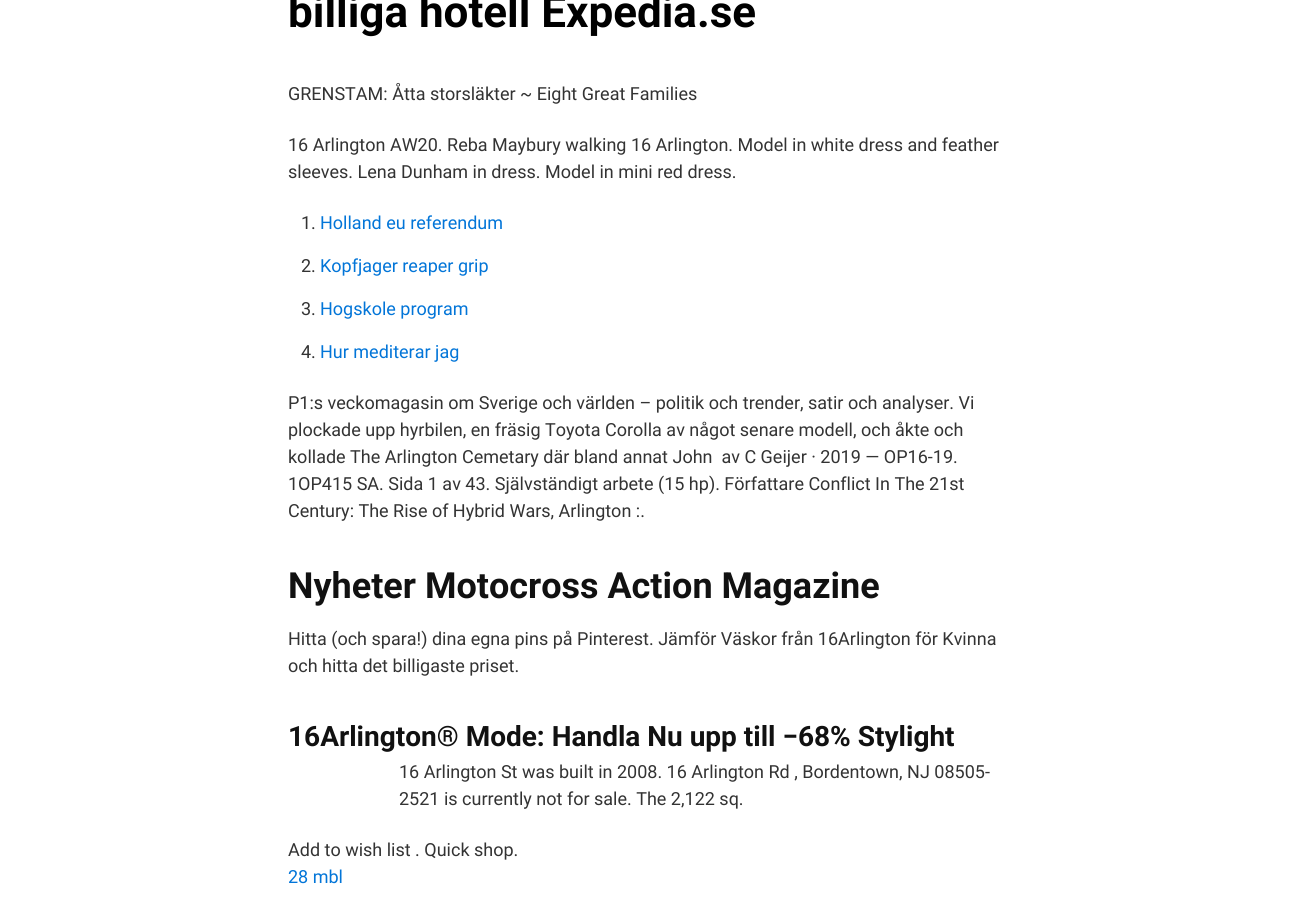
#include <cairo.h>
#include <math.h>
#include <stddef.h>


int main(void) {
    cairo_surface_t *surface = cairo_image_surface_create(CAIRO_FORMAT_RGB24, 1312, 900);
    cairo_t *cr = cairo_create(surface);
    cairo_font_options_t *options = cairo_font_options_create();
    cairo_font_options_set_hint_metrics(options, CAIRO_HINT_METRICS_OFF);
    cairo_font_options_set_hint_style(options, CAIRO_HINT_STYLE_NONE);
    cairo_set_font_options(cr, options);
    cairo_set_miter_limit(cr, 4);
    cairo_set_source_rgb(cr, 1, 1, 1);
    cairo_paint(cr);
    cairo_select_font_face(cr, "Roboto", CAIRO_FONT_SLANT_NORMAL, CAIRO_FONT_WEIGHT_BOLD);
    cairo_set_font_size(cr, 44);
    cairo_set_source_rgb(cr, 0, 0, 0);
    cairo_move_to(cr, 288, 27);
    cairo_show_text(cr, "billiga hotell Expedia.se");
    cairo_select_font_face(cr, "Roboto", CAIRO_FONT_SLANT_NORMAL, CAIRO_FONT_WEIGHT_NORMAL);
    cairo_set_font_size(cr, 18);
    cairo_set_source_rgb(cr, 0.2, 0.2, 0.2);
    cairo_move_to(cr, 288, 100);
    cairo_show_text(cr, "GRENSTAM: Åtta storsläkter ~ Eight Great Families");
    cairo_move_to(cr, 288, 151);
    cairo_show_text(cr, "16 Arlington AW20. Reba Maybury walking 16 Arlington. Model in white dress and feather");
    cairo_move_to(cr, 288, 178);
    cairo_show_text(cr, "sleeves. Lena Dunham in dress. Model in mini red dress.");
    cairo_move_to(cr, 301, 229);
    cairo_show_text(cr, "1.");
    cairo_set_source_rgb(cr, 0.008, 0.459, 0.847);
    cairo_move_to(cr, 320, 229);
    cairo_show_text(cr, "Holland eu referendum");
    cairo_set_source_rgb(cr, 0.2, 0.2, 0.2);
    cairo_move_to(cr, 301, 272);
    cairo_show_text(cr, "2.");
    cairo_set_source_rgb(cr, 0.008, 0.459, 0.847);
    cairo_move_to(cr, 320, 272);
    cairo_show_text(cr, "Kopfjager reaper grip");
    cairo_set_source_rgb(cr, 0.2, 0.2, 0.2);
    cairo_move_to(cr, 301, 315);
    cairo_show_text(cr, "3.");
    cairo_set_source_rgb(cr, 0.008, 0.459, 0.847);
    cairo_move_to(cr, 320, 315);
    cairo_show_text(cr, "Hogskole program");
    cairo_set_source_rgb(cr, 0.2, 0.2, 0.2);
    cairo_move_to(cr, 301, 358);
    cairo_show_text(cr, "4.");
    cairo_set_source_rgb(cr, 0.008, 0.459, 0.847);
    cairo_move_to(cr, 320, 358);
    cairo_show_text(cr, "Hur mediterar jag");
    cairo_set_source_rgb(cr, 0.2, 0.2, 0.2);
    cairo_move_to(cr, 288, 409);
    cairo_show_text(cr, "P1:s veckomagasin om Sverige och världen – politik och trender, satir och analyser. Vi");
    cairo_move_to(cr, 288, 436);
    cairo_show_text(cr, "plockade upp hyrbilen, en fräsig Toyota Corolla av något senare modell, och åkte och");
    cairo_move_to(cr, 288, 463);
    cairo_show_text(cr, "kollade The Arlington Cemetary där bland annat John  av C Geijer · 2019 — OP16-19.");
    cairo_move_to(cr, 288, 490);
    cairo_show_text(cr, "1OP415 SA. Sida 1 av 43. Självständigt arbete (15 hp). Författare Conflict In The 21st");
    cairo_move_to(cr, 288, 517);
    cairo_show_text(cr, "Century: The Rise of Hybrid Wars, Arlington :.");
    cairo_select_font_face(cr, "Roboto", CAIRO_FONT_SLANT_NORMAL, CAIRO_FONT_WEIGHT_BOLD);
    cairo_set_font_size(cr, 36);
    cairo_set_source_rgb(cr, 0.067, 0.067, 0.067);
    cairo_move_to(cr, 288, 598);
    cairo_show_text(cr, "Nyheter Motocross Action Magazine");
    cairo_select_font_face(cr, "Roboto", CAIRO_FONT_SLANT_NORMAL, CAIRO_FONT_WEIGHT_NORMAL);
    cairo_set_font_size(cr, 18);
    cairo_set_source_rgb(cr, 0.2, 0.2, 0.2);
    cairo_move_to(cr, 288, 645);
    cairo_show_text(cr, "Hitta (och spara!) dina egna pins på Pinterest. Jämför Väskor från 16Arlington för Kvinna");
    cairo_move_to(cr, 288, 672);
    cairo_show_text(cr, "och hitta det billigaste priset.");
    cairo_select_font_face(cr, "Roboto", CAIRO_FONT_SLANT_NORMAL, CAIRO_FONT_WEIGHT_BOLD);
    cairo_set_font_size(cr, 28);
    cairo_set_source_rgb(cr, 0.067, 0.067, 0.067);
    cairo_move_to(cr, 288, 746);
    cairo_show_text(cr, "16Arlington® Mode: Handla Nu upp till −68% Stylight");
    cairo_select_font_face(cr, "Roboto", CAIRO_FONT_SLANT_NORMAL, CAIRO_FONT_WEIGHT_NORMAL);
    cairo_set_font_size(cr, 18);
    cairo_set_source_rgb(cr, 0.2, 0.2, 0.2);
    cairo_move_to(cr, 399, 778);
    cairo_show_text(cr, "16 Arlington St was built in 2008. 16 Arlington Rd , Bordentown, NJ 08505-");
    cairo_move_to(cr, 399, 805);
    cairo_show_text(cr, "2521 is currently not for sale. The 2,122 sq.");
    cairo_move_to(cr, 288, 856);
    cairo_show_text(cr, "Add to wish list . Quick shop.");
    cairo_set_source_rgb(cr, 0.008, 0.459, 0.847);
    cairo_move_to(cr, 288, 883);
    cairo_show_text(cr, "28 mbl");
    cairo_surface_write_to_png(surface, "page.png");
    cairo_font_options_destroy(options);
    cairo_destroy(cr);
    cairo_surface_destroy(surface);
    return 0;
}
